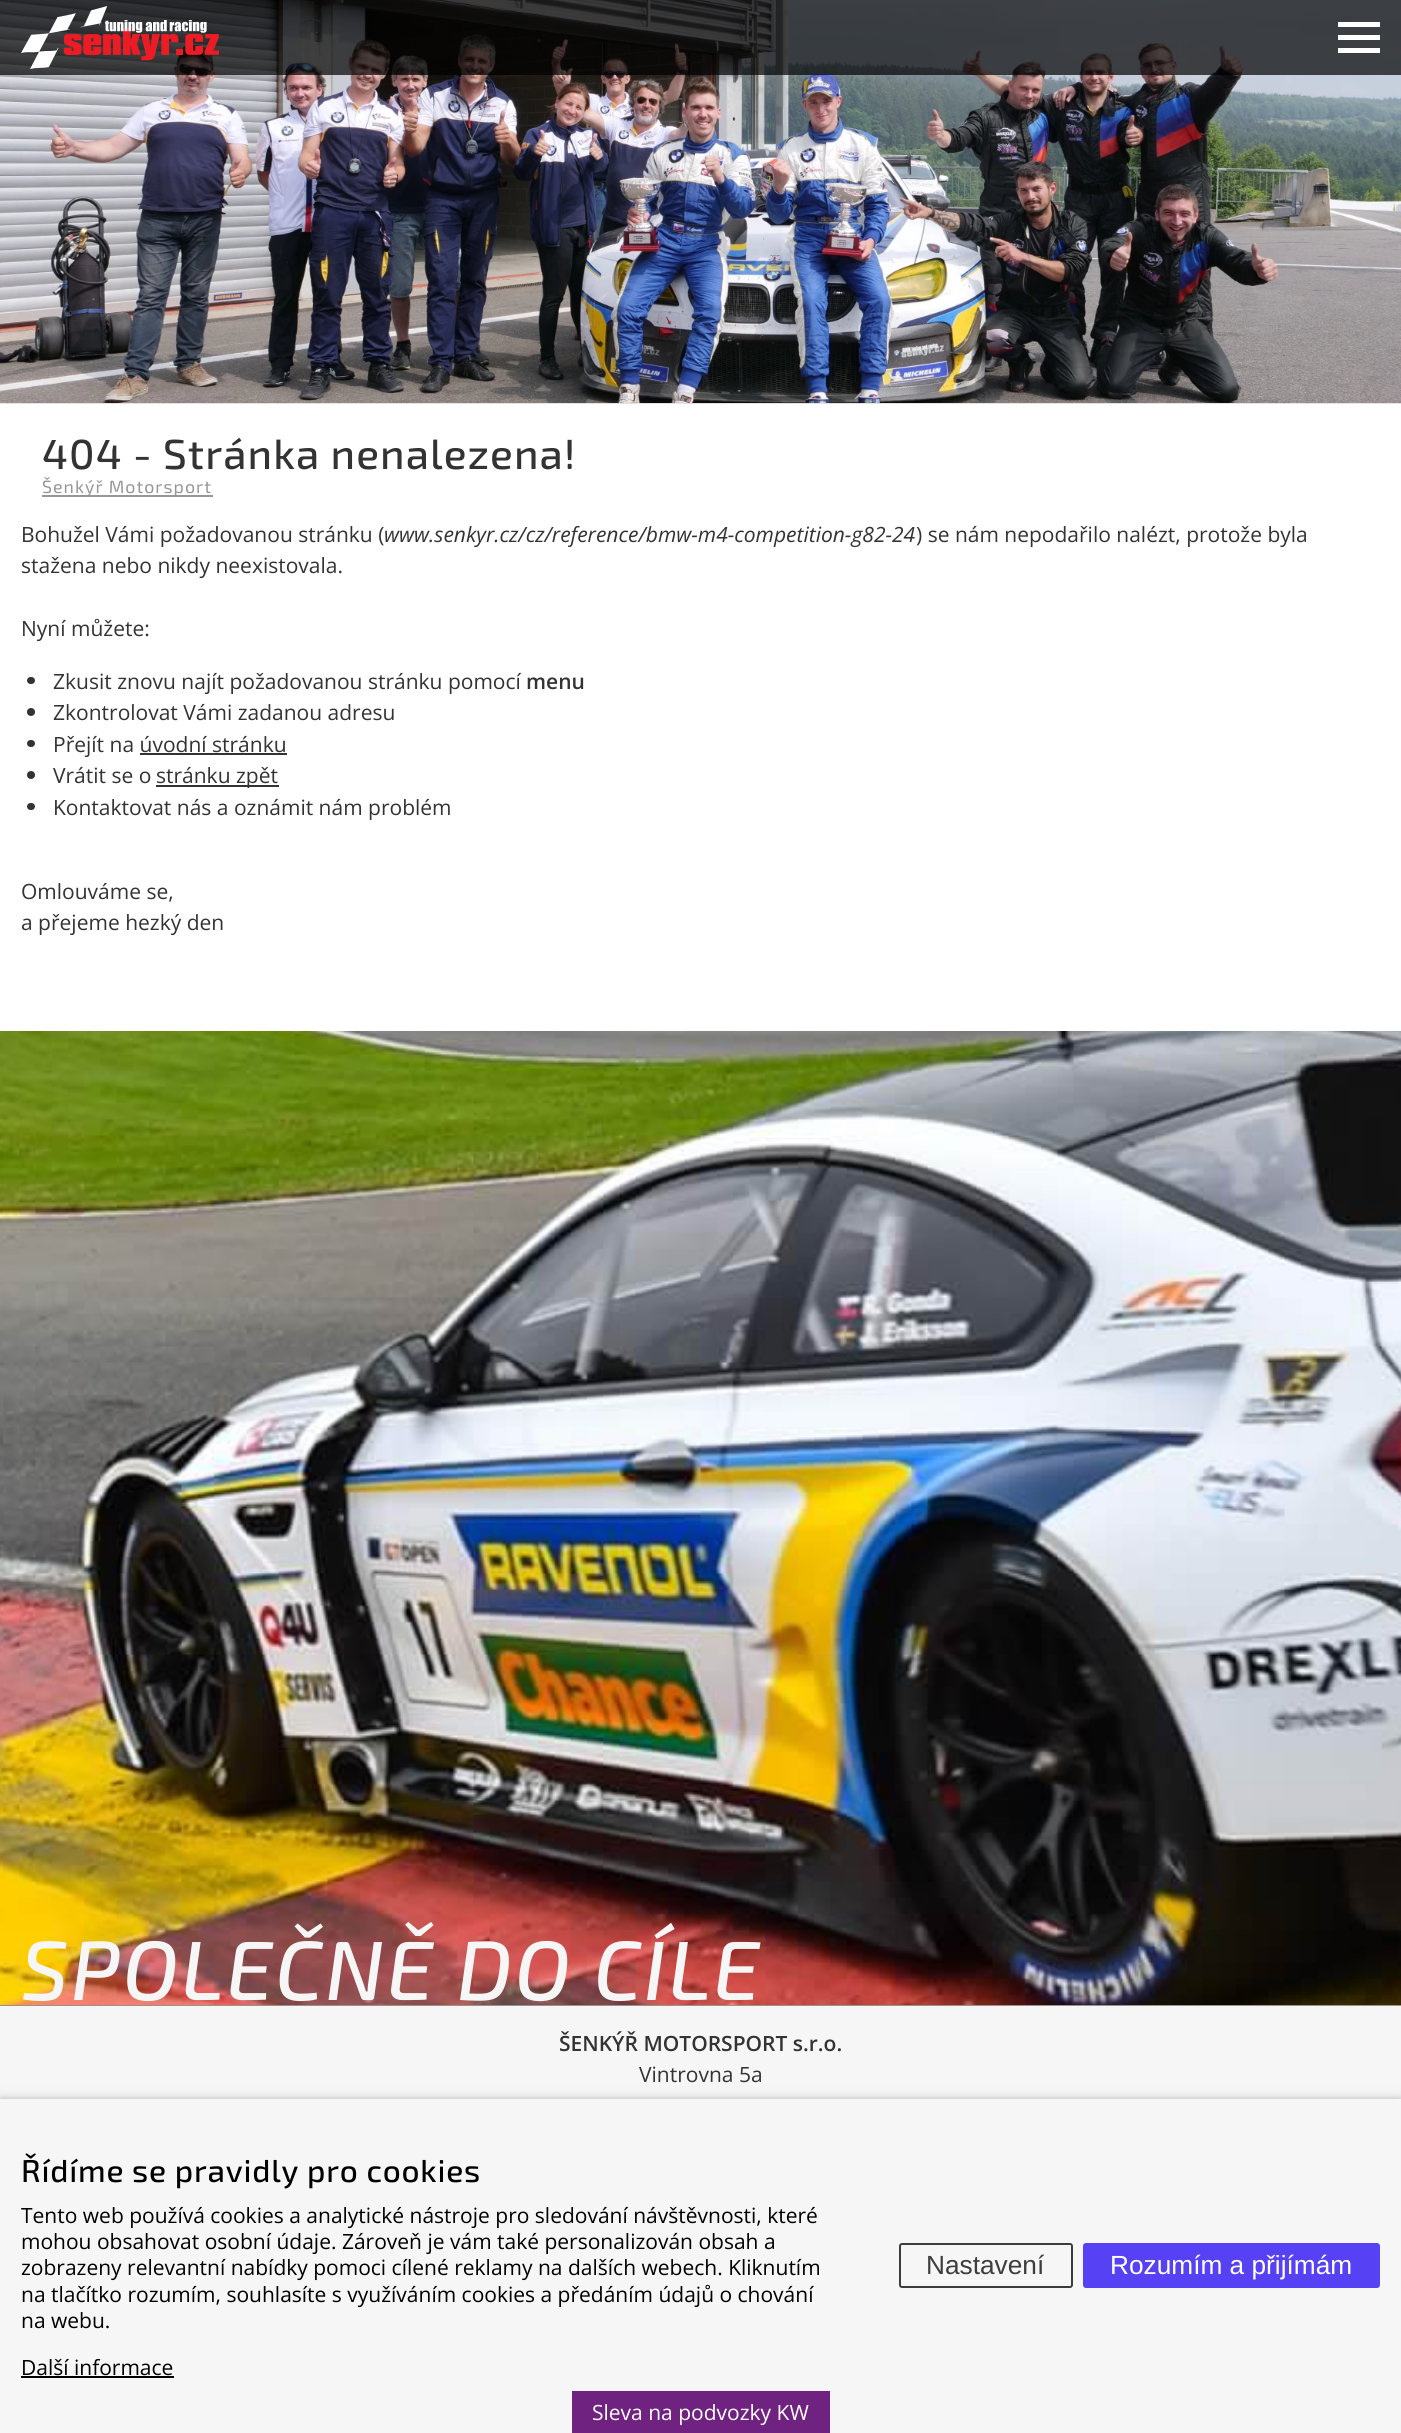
#include <cairo.h>
#include <math.h>
#include <stddef.h>


static void spaced_text(cairo_t *cr, double x, double y, const char *s, double letter, double word) {
    cairo_move_to(cr, x, y);
    while (*s) {
        char ch[5] = {0};
        int n = 0;
        do ch[n++] = *s++; while ((*s & 0xC0) == 0x80);
        cairo_show_text(cr, ch);
        cairo_rel_move_to(cr, letter + word * (*ch == ' '), 0);
    }
}

static void round_rect(cairo_t *cr, double x, double y, double w, double h, double r) {
    cairo_new_sub_path(cr);
    cairo_arc(cr, x + w - r, y + h - r, r, 0, M_PI / 2);
    cairo_arc(cr, x + r, y + h - r, r, M_PI / 2, M_PI);
    cairo_arc(cr, x + r, y + r, r, M_PI, 1.5 * M_PI);
    cairo_arc(cr, x + w - r, y + r, r, 1.5 * M_PI, 2 * M_PI);
    cairo_close_path(cr);
}

static void shadow(cairo_t *cr, double x, double y, double w, double h, double r, double blur, double alpha) {
    cairo_push_group_with_content(cr, CAIRO_CONTENT_ALPHA);
    cairo_set_operator(cr, CAIRO_OPERATOR_SOURCE);
    for (int i = 15; i >= -15 && fmin(w, h) + blur * i / 3 > 0; i -= 2) {
        double e = blur * i / 6;
        cairo_set_source_rgba(cr, 0, 0, 0, alpha * erfc((i - 1) / 8.5) / 2);
        round_rect(cr, x - e, y - e, w + 2 * e, h + 2 * e, fmax(0, fmin(r + e + blur * .6, fmin(w, h) / 2 + e)));
        cairo_fill(cr);
    }
    cairo_pattern_t *soft = cairo_pop_group(cr);
    cairo_mask(cr, soft);
    cairo_pattern_destroy(soft);
}

static void picture(cairo_t *cr, const char *path, double x, double y, double w, double h) {
    cairo_surface_t *image = cairo_image_surface_create_from_png(path);
    cairo_save(cr);
    cairo_set_source_surface(cr, image, x, y);
    cairo_rectangle(cr, x, y, w, h);
    cairo_fill(cr);
    cairo_restore(cr);
    cairo_surface_destroy(image);
}

int main(void) {
    cairo_surface_t *surface = cairo_image_surface_create(CAIRO_FORMAT_RGB24, 1401, 2433);
    cairo_t *cr = cairo_create(surface);
    cairo_font_options_t *options = cairo_font_options_create();
    cairo_font_options_set_hint_metrics(options, CAIRO_HINT_METRICS_OFF);
    cairo_font_options_set_hint_style(options, CAIRO_HINT_STYLE_NONE);
    cairo_set_font_options(cr, options);
    cairo_set_miter_limit(cr, 4);
    cairo_set_source_rgb(cr, 1, 1, 1);
    cairo_paint(cr);
    cairo_set_source_rgb(cr, 0.886, 0.886, 0.886);
    cairo_rectangle(cr, 0, 403, 1401, 1);
    cairo_fill(cr);
    picture(cr, "img1.png", 0, 0, 1401, 403);
    cairo_set_source_rgba(cr, 0, 0, 0, 0.7);
    cairo_rectangle(cr, 0, 0, 1401, 75);
    cairo_fill(cr);
    picture(cr, "img2.png", 21, 6, 198, 63);
    cairo_set_source_rgb(cr, 1, 1, 1);
    cairo_rectangle(cr, 1338, 22, 42, 5);
    cairo_fill(cr);
    cairo_rectangle(cr, 1338, 35, 42, 5);
    cairo_fill(cr);
    cairo_rectangle(cr, 1338, 48, 42, 5);
    cairo_fill(cr);
    cairo_select_font_face(cr, "Exo 2 Medium", CAIRO_FONT_SLANT_NORMAL, CAIRO_FONT_WEIGHT_NORMAL);
    cairo_set_font_size(cr, 42);
    cairo_set_source_rgb(cr, 0.2, 0.2, 0.2);
    spaced_text(cr, 42, 469, "404 - Stránka nenalezena!", 1.05, 0);
    cairo_set_source_rgb(cr, 0.588, 0.588, 0.588);
    cairo_rectangle(cr, 42, 495, 171, 2);
    cairo_fill(cr);
    cairo_select_font_face(cr, "Exo 2", CAIRO_FONT_SLANT_NORMAL, CAIRO_FONT_WEIGHT_NORMAL);
    cairo_set_font_size(cr, 17.75);
    spaced_text(cr, 42, 493, "Šenkýř Motorsport", 1.05, 0);
    cairo_select_font_face(cr, "Open Sans", CAIRO_FONT_SLANT_NORMAL, CAIRO_FONT_WEIGHT_NORMAL);
    cairo_set_font_size(cr, 21);
    cairo_set_source_rgb(cr, 0.2, 0.2, 0.2);
    cairo_move_to(cr, 21, 542);
    cairo_show_text(cr, "Bohužel Vámi požadovanou stránku (");
    cairo_select_font_face(cr, "Open Sans", CAIRO_FONT_SLANT_ITALIC, CAIRO_FONT_WEIGHT_NORMAL);
    cairo_move_to(cr, 384, 542);
    cairo_show_text(cr, "www.senkyr.cz/cz/reference/bmw-m4-competition-g82-24");
    cairo_select_font_face(cr, "Open Sans", CAIRO_FONT_SLANT_NORMAL, CAIRO_FONT_WEIGHT_NORMAL);
    cairo_move_to(cr, 916, 542);
    cairo_show_text(cr, ") se nám nepodařilo nalézt, protože byla");
    cairo_move_to(cr, 21, 573);
    cairo_show_text(cr, "stažena nebo nikdy neexistovala.");
    cairo_move_to(cr, 21, 636);
    cairo_show_text(cr, "Nyní můžete:");
    round_rect(cr, 27, 677, 8, 7, 3.5);
    cairo_fill(cr);
    cairo_move_to(cr, 53, 689);
    cairo_show_text(cr, "Zkusit znovu najít požadovanou stránku pomocí");
    cairo_select_font_face(cr, "Open Sans SemiBold", CAIRO_FONT_SLANT_NORMAL, CAIRO_FONT_WEIGHT_NORMAL);
    cairo_move_to(cr, 526, 689);
    cairo_show_text(cr, "menu");
    cairo_new_path(cr);
    cairo_arc(cr, 31, 712, 4, 0, 2 * M_PI);
    cairo_fill(cr);
    cairo_select_font_face(cr, "Open Sans", CAIRO_FONT_SLANT_NORMAL, CAIRO_FONT_WEIGHT_NORMAL);
    cairo_move_to(cr, 53, 720);
    cairo_show_text(cr, "Zkontrolovat Vámi zadanou adresu");
    round_rect(cr, 27, 740, 8, 7, 3.5);
    cairo_fill(cr);
    cairo_move_to(cr, 53, 752);
    cairo_show_text(cr, "Přejít na úvodní stránku");
    cairo_rectangle(cr, 140, 753, 147, 2);
    cairo_fill(cr);
    cairo_arc(cr, 31, 775, 4, 0, 2 * M_PI);
    cairo_fill(cr);
    cairo_move_to(cr, 53, 783);
    cairo_show_text(cr, "Vrátit se o");
    cairo_rectangle(cr, 156, 785, 123, 2);
    cairo_fill(cr);
    cairo_move_to(cr, 156, 783);
    cairo_show_text(cr, "stránku zpět");
    round_rect(cr, 27, 803, 8, 7, 3.5);
    cairo_fill(cr);
    cairo_move_to(cr, 53, 815);
    cairo_show_text(cr, "Kontaktovat nás a oznámit nám problém");
    cairo_move_to(cr, 21, 899);
    cairo_show_text(cr, "Omlouváme se,");
    cairo_move_to(cr, 21, 930);
    cairo_show_text(cr, "a přejeme hezký den");
    cairo_set_source_rgb(cr, 0.961, 0.961, 0.961);
    cairo_rectangle(cr, 0, 2006, 1401, 93);
    cairo_fill(cr);
    cairo_set_source_rgb(cr, 0.596, 0.58, 0.549);
    cairo_rectangle(cr, 0, 2005, 1401, 1);
    cairo_fill(cr);
    picture(cr, "img3.png", 0, 1031, 1401, 974);
    cairo_select_font_face(cr, "Exo 2 Medium", CAIRO_FONT_SLANT_ITALIC, CAIRO_FONT_WEIGHT_NORMAL);
    cairo_set_font_size(cr, 84);
    cairo_set_source_rgb(cr, 0.961, 0.961, 0.961);
    spaced_text(cr, 21, 2000, "SPOLEČNĚ DO CÍLE", 2.1, 0);
    cairo_select_font_face(cr, "Open Sans SemiBold", CAIRO_FONT_SLANT_NORMAL, CAIRO_FONT_WEIGHT_NORMAL);
    cairo_set_font_size(cr, 21);
    cairo_set_source_rgb(cr, 0.2, 0.2, 0.2);
    cairo_move_to(cr, 559, 2051);
    cairo_show_text(cr, "ŠENKÝŘ MOTORSPORT s.r.o.");
    cairo_select_font_face(cr, "Open Sans", CAIRO_FONT_SLANT_NORMAL, CAIRO_FONT_WEIGHT_NORMAL);
    cairo_move_to(cr, 639, 2082);
    cairo_show_text(cr, "Vintrovna 5a");
    cairo_set_source_rgb(cr, 0, 0, 0);
    shadow(cr, 0, 2102, 1401, 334, 0, 7.5, 0.22);
    shadow(cr, 0, 2102, 1401, 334, 0, 4, 0.32);
    cairo_set_source_rgb(cr, 0.961, 0.961, 0.961);
    cairo_rectangle(cr, 0, 2099, 1401, 334);
    cairo_fill(cr);
    cairo_select_font_face(cr, "Exo 2 Medium", CAIRO_FONT_SLANT_NORMAL, CAIRO_FONT_WEIGHT_NORMAL);
    cairo_set_font_size(cr, 31.5);
    cairo_set_source_rgb(cr, 0, 0, 0);
    spaced_text(cr, 21, 2182, "Řídíme se pravidly pro cookies", 0.8, 0);
    cairo_select_font_face(cr, "Open Sans", CAIRO_FONT_SLANT_NORMAL, CAIRO_FONT_WEIGHT_NORMAL);
    cairo_set_font_size(cr, 21);
    cairo_move_to(cr, 21, 2223);
    cairo_show_text(cr, "Tento web používá cookies a analytické nástroje pro sledování návštěvnosti, které");
    cairo_move_to(cr, 21, 2249);
    cairo_show_text(cr, "mohou obsahovat osobní údaje. Zároveň je vám také personalizován obsah a");
    cairo_move_to(cr, 21, 2275);
    cairo_show_text(cr, "zobrazeny relevantní nabídky pomoci cílené reklamy na dalších webech. Kliknutím");
    cairo_move_to(cr, 21, 2302);
    cairo_show_text(cr, "na tlačítko rozumím, souhlasíte s využíváním cookies a předáním údajů o chování");
    cairo_move_to(cr, 21, 2328);
    cairo_show_text(cr, "na webu.");
    cairo_move_to(cr, 21, 2375);
    cairo_show_text(cr, "Další informace");
    cairo_rectangle(cr, 21, 2376, 153, 2);
    cairo_fill(cr);
    round_rect(cr, 900, 2244, 172, 43, 2);
    cairo_set_source_rgb(cr, 0.239, 0.239, 0.239);
    cairo_stroke(cr);
    cairo_select_font_face(cr, "Liberation Sans", CAIRO_FONT_SLANT_NORMAL, CAIRO_FONT_WEIGHT_NORMAL);
    cairo_set_font_size(cr, 26.25);
    cairo_move_to(cr, 926, 2274);
    cairo_show_text(cr, "Nastavení");
    cairo_set_source_rgb(cr, 0.337, 0.255, 0.957);
    round_rect(cr, 1084, 2244, 295, 43, 2);
    cairo_fill_preserve(cr);
    cairo_stroke(cr);
    cairo_set_source_rgb(cr, 1, 1, 1);
    cairo_move_to(cr, 1110, 2274);
    cairo_show_text(cr, "Rozumím a přijímám");
    cairo_set_source_rgb(cr, 0.435, 0.133, 0.502);
    cairo_rectangle(cr, 572, 2391, 258, 42);
    cairo_fill(cr);
    cairo_select_font_face(cr, "Open Sans", CAIRO_FONT_SLANT_NORMAL, CAIRO_FONT_WEIGHT_NORMAL);
    cairo_set_font_size(cr, 21);
    cairo_set_source_rgb(cr, 1, 1, 1);
    cairo_move_to(cr, 592, 2420);
    cairo_show_text(cr, "Sleva na podvozky KW");
    cairo_surface_write_to_png(surface, "page.png");
    cairo_font_options_destroy(options);
    cairo_destroy(cr);
    cairo_surface_destroy(surface);
    return 0;
}
